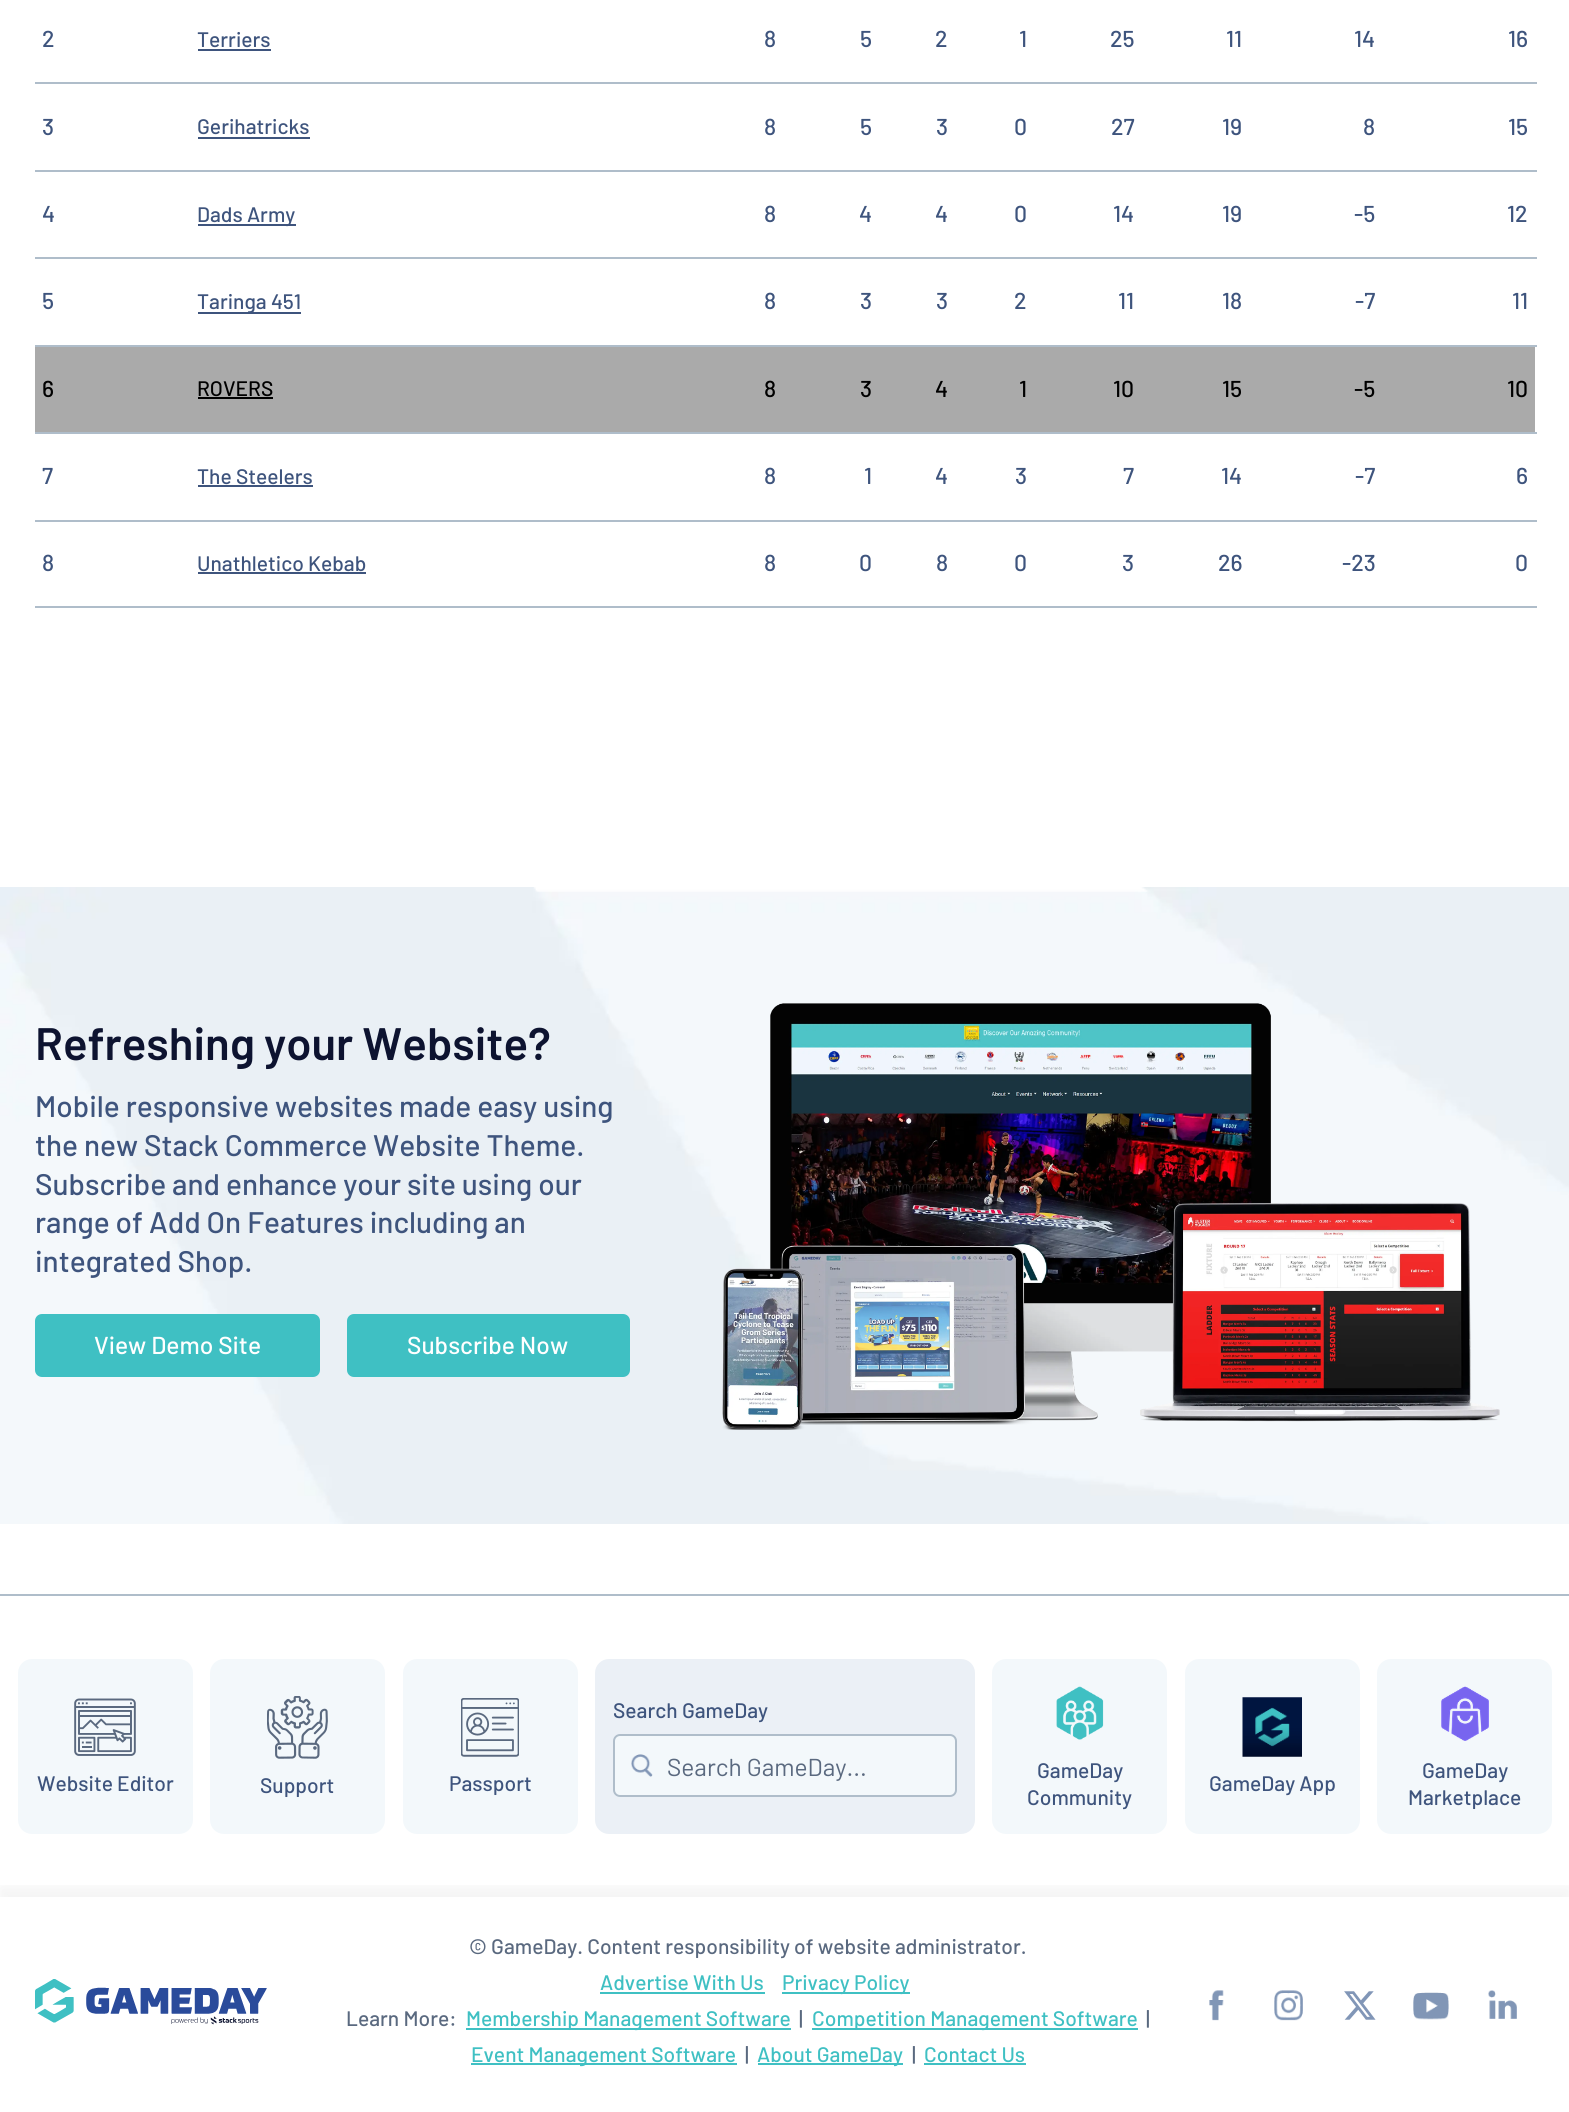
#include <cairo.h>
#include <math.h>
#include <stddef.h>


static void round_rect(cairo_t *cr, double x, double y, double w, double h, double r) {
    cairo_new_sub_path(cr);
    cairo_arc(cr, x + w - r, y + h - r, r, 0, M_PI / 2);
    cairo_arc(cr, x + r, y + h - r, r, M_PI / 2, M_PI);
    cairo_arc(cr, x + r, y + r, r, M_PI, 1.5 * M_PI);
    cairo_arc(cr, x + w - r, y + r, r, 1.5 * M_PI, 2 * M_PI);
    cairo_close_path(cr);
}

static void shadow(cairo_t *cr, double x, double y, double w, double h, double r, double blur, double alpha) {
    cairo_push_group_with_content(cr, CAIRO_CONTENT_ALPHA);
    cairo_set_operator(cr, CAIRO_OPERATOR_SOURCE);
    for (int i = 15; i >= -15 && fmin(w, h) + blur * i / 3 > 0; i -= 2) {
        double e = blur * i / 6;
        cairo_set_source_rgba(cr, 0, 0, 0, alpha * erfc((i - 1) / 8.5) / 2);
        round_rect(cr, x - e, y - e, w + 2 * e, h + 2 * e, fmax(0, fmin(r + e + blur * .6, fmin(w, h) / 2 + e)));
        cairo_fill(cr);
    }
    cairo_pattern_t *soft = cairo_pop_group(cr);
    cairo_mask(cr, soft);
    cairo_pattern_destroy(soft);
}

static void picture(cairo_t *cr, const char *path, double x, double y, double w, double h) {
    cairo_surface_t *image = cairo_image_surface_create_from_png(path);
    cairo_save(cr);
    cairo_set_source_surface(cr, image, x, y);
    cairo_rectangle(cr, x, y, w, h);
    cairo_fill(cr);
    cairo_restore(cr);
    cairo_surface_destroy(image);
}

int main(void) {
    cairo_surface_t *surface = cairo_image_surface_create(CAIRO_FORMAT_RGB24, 1569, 2112);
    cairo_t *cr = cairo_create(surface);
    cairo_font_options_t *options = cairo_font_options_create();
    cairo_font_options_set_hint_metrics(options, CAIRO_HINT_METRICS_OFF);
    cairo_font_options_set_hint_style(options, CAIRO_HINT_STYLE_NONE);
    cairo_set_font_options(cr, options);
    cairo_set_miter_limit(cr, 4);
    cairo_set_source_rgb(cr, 1, 1, 1);
    cairo_paint(cr);
    cairo_select_font_face(cr, "Barlow Medium", CAIRO_FONT_SLANT_NORMAL, CAIRO_FONT_WEIGHT_NORMAL);
    cairo_set_font_size(cr, 23);
    cairo_set_source_rgb(cr, 0.243, 0.329, 0.49);
    cairo_move_to(cr, 42, 47);
    cairo_show_text(cr, "2");
    cairo_set_font_size(cr, 21);
    cairo_move_to(cr, 197, 47);
    cairo_show_text(cr, "Terriers");
    cairo_rectangle(cr, 198, 49, 73, 2);
    cairo_fill(cr);
    cairo_set_font_size(cr, 23);
    cairo_move_to(cr, 764, 47);
    cairo_show_text(cr, "8");
    cairo_move_to(cr, 860, 47);
    cairo_show_text(cr, "5");
    cairo_move_to(cr, 935, 47);
    cairo_show_text(cr, "2");
    cairo_move_to(cr, 1019, 47);
    cairo_show_text(cr, "1");
    cairo_move_to(cr, 1110, 47);
    cairo_show_text(cr, "25");
    cairo_move_to(cr, 1226, 47);
    cairo_show_text(cr, "11");
    cairo_move_to(cr, 1354, 47);
    cairo_show_text(cr, "14");
    cairo_set_source_rgb(cr, 0.686, 0.741, 0.792);
    cairo_rectangle(cr, 35, 82, 1502, 2);
    cairo_fill(cr);
    cairo_set_source_rgb(cr, 0.243, 0.329, 0.49);
    cairo_move_to(cr, 1508, 47);
    cairo_show_text(cr, "16");
    cairo_move_to(cr, 42, 135);
    cairo_show_text(cr, "3");
    cairo_set_font_size(cr, 21);
    cairo_move_to(cr, 197, 134);
    cairo_show_text(cr, "Gerihatricks");
    cairo_rectangle(cr, 198, 137, 112, 2);
    cairo_fill(cr);
    cairo_set_font_size(cr, 23);
    cairo_move_to(cr, 764, 135);
    cairo_show_text(cr, "8");
    cairo_move_to(cr, 860, 135);
    cairo_show_text(cr, "5");
    cairo_move_to(cr, 936, 135);
    cairo_show_text(cr, "3");
    cairo_move_to(cr, 1014, 135);
    cairo_show_text(cr, "0");
    cairo_move_to(cr, 1111, 135);
    cairo_show_text(cr, "27");
    cairo_move_to(cr, 1222, 135);
    cairo_show_text(cr, "19");
    cairo_move_to(cr, 1363, 135);
    cairo_show_text(cr, "8");
    cairo_set_source_rgb(cr, 0.686, 0.741, 0.792);
    cairo_rectangle(cr, 35, 170, 1502, 2);
    cairo_fill(cr);
    cairo_set_source_rgb(cr, 0.243, 0.329, 0.49);
    cairo_move_to(cr, 1508, 135);
    cairo_show_text(cr, "15");
    cairo_move_to(cr, 42, 222);
    cairo_show_text(cr, "4");
    cairo_rectangle(cr, 198, 224, 98, 2);
    cairo_fill(cr);
    cairo_set_font_size(cr, 21);
    cairo_move_to(cr, 197, 222);
    cairo_show_text(cr, "Dads Army");
    cairo_set_font_size(cr, 23);
    cairo_move_to(cr, 764, 222);
    cairo_show_text(cr, "8");
    cairo_move_to(cr, 859, 222);
    cairo_show_text(cr, "4");
    cairo_move_to(cr, 935, 222);
    cairo_show_text(cr, "4");
    cairo_move_to(cr, 1014, 222);
    cairo_show_text(cr, "0");
    cairo_move_to(cr, 1113, 222);
    cairo_show_text(cr, "14");
    cairo_move_to(cr, 1222, 222);
    cairo_show_text(cr, "19");
    cairo_move_to(cr, 1354, 222);
    cairo_show_text(cr, "-5");
    cairo_set_source_rgb(cr, 0.686, 0.741, 0.792);
    cairo_rectangle(cr, 35, 257, 1502, 2);
    cairo_fill(cr);
    cairo_set_source_rgb(cr, 0.243, 0.329, 0.49);
    cairo_move_to(cr, 1507, 222);
    cairo_show_text(cr, "12");
    cairo_move_to(cr, 42, 309);
    cairo_show_text(cr, "5");
    cairo_rectangle(cr, 198, 312, 103, 2);
    cairo_fill(cr);
    cairo_set_font_size(cr, 21);
    cairo_move_to(cr, 197, 309);
    cairo_show_text(cr, "Taringa 451");
    cairo_set_font_size(cr, 23);
    cairo_move_to(cr, 764, 309);
    cairo_show_text(cr, "8");
    cairo_move_to(cr, 860, 309);
    cairo_show_text(cr, "3");
    cairo_move_to(cr, 936, 309);
    cairo_show_text(cr, "3");
    cairo_move_to(cr, 1014, 309);
    cairo_show_text(cr, "2");
    cairo_move_to(cr, 1118, 309);
    cairo_show_text(cr, "11");
    cairo_move_to(cr, 1222, 309);
    cairo_show_text(cr, "18");
    cairo_move_to(cr, 1355, 309);
    cairo_show_text(cr, "-7");
    cairo_set_source_rgb(cr, 0.686, 0.741, 0.792);
    cairo_rectangle(cr, 35, 345, 1502, 2);
    cairo_fill(cr);
    cairo_set_source_rgb(cr, 0.243, 0.329, 0.49);
    cairo_move_to(cr, 1512, 309);
    cairo_show_text(cr, "11");
    cairo_set_source_rgb(cr, 0.667, 0.667, 0.667);
    cairo_rectangle(cr, 35, 347, 1500, 85);
    cairo_fill(cr);
    cairo_set_source_rgb(cr, 0, 0, 0);
    cairo_move_to(cr, 42, 397);
    cairo_show_text(cr, "6");
    cairo_set_font_size(cr, 21);
    cairo_move_to(cr, 197, 396);
    cairo_show_text(cr, "ROVERS");
    cairo_rectangle(cr, 198, 397, 75, 2);
    cairo_fill(cr);
    cairo_set_font_size(cr, 23);
    cairo_move_to(cr, 764, 397);
    cairo_show_text(cr, "8");
    cairo_move_to(cr, 860, 397);
    cairo_show_text(cr, "3");
    cairo_move_to(cr, 935, 397);
    cairo_show_text(cr, "4");
    cairo_move_to(cr, 1019, 397);
    cairo_show_text(cr, "1");
    cairo_move_to(cr, 1113, 397);
    cairo_show_text(cr, "10");
    cairo_move_to(cr, 1222, 397);
    cairo_show_text(cr, "15");
    cairo_move_to(cr, 1354, 397);
    cairo_show_text(cr, "-5");
    cairo_set_source_rgb(cr, 0.686, 0.741, 0.792);
    cairo_rectangle(cr, 35, 432, 1502, 2);
    cairo_fill(cr);
    cairo_set_source_rgb(cr, 0, 0, 0);
    cairo_move_to(cr, 1507, 397);
    cairo_show_text(cr, "10");
    cairo_set_source_rgb(cr, 0.243, 0.329, 0.49);
    cairo_move_to(cr, 42, 484);
    cairo_show_text(cr, "7");
    cairo_set_font_size(cr, 21);
    cairo_move_to(cr, 197, 484);
    cairo_show_text(cr, "The Steelers");
    cairo_rectangle(cr, 198, 485, 115, 2);
    cairo_fill(cr);
    cairo_set_font_size(cr, 23);
    cairo_move_to(cr, 764, 484);
    cairo_show_text(cr, "8");
    cairo_move_to(cr, 864, 484);
    cairo_show_text(cr, "1");
    cairo_move_to(cr, 935, 484);
    cairo_show_text(cr, "4");
    cairo_move_to(cr, 1015, 484);
    cairo_show_text(cr, "3");
    cairo_move_to(cr, 1123, 484);
    cairo_show_text(cr, "7");
    cairo_move_to(cr, 1221, 484);
    cairo_show_text(cr, "14");
    cairo_move_to(cr, 1355, 484);
    cairo_show_text(cr, "-7");
    cairo_set_source_rgb(cr, 0.686, 0.741, 0.792);
    cairo_rectangle(cr, 35, 520, 1502, 2);
    cairo_fill(cr);
    cairo_set_source_rgb(cr, 0.243, 0.329, 0.49);
    cairo_move_to(cr, 1516, 484);
    cairo_show_text(cr, "6");
    cairo_move_to(cr, 42, 571);
    cairo_show_text(cr, "8");
    cairo_set_font_size(cr, 21);
    cairo_move_to(cr, 197, 571);
    cairo_show_text(cr, "Unathletico Kebab");
    cairo_rectangle(cr, 198, 572, 168, 2);
    cairo_fill(cr);
    cairo_set_font_size(cr, 23);
    cairo_move_to(cr, 764, 571);
    cairo_show_text(cr, "8");
    cairo_move_to(cr, 859, 571);
    cairo_show_text(cr, "0");
    cairo_move_to(cr, 936, 571);
    cairo_show_text(cr, "8");
    cairo_move_to(cr, 1014, 571);
    cairo_show_text(cr, "0");
    cairo_move_to(cr, 1122, 571);
    cairo_show_text(cr, "3");
    cairo_move_to(cr, 1218, 571);
    cairo_show_text(cr, "26");
    cairo_move_to(cr, 1342, 571);
    cairo_show_text(cr, "-23");
    cairo_set_source_rgb(cr, 0.686, 0.741, 0.792);
    cairo_rectangle(cr, 35, 606, 1502, 2);
    cairo_fill(cr);
    cairo_set_source_rgb(cr, 0.243, 0.329, 0.49);
    cairo_move_to(cr, 1515, 571);
    cairo_show_text(cr, "0");
    picture(cr, "img1.png", 0, 887, 1569, 637);
    cairo_select_font_face(cr, "Barlow SemiBold", CAIRO_FONT_SLANT_NORMAL, CAIRO_FONT_WEIGHT_NORMAL);
    cairo_set_font_size(cr, 45.5);
    cairo_set_source_rgb(cr, 0.051, 0.075, 0.188);
    cairo_move_to(cr, 35, 1060);
    cairo_show_text(cr, "Refreshing your Website?");
    cairo_select_font_face(cr, "Barlow Medium", CAIRO_FONT_SLANT_NORMAL, CAIRO_FONT_WEIGHT_NORMAL);
    cairo_set_font_size(cr, 29.75);
    cairo_set_source_rgb(cr, 0.243, 0.329, 0.49);
    cairo_move_to(cr, 35, 1117);
    cairo_show_text(cr, "Mobile responsive websites made easy using");
    cairo_move_to(cr, 35, 1156);
    cairo_show_text(cr, "the new Stack Commerce Website Theme.");
    cairo_move_to(cr, 35, 1195);
    cairo_show_text(cr, "Subscribe and enhance your site using our");
    cairo_move_to(cr, 35, 1233);
    cairo_show_text(cr, "range of Add On Features including an");
    cairo_move_to(cr, 35, 1272);
    cairo_show_text(cr, "integrated Shop.");
    cairo_set_source_rgb(cr, 0.247, 0.753, 0.765);
    round_rect(cr, 35, 1314, 285, 63, 7);
    cairo_fill(cr);
    cairo_set_font_size(cr, 24.5);
    cairo_set_source_rgb(cr, 1, 1, 1);
    cairo_move_to(cr, 94, 1354);
    cairo_show_text(cr, "View Demo Site");
    cairo_set_source_rgb(cr, 0.247, 0.753, 0.765);
    round_rect(cr, 347, 1314, 283, 63, 7);
    cairo_fill(cr);
    cairo_set_source_rgb(cr, 1, 1, 1);
    cairo_move_to(cr, 407, 1354);
    cairo_show_text(cr, "Subscribe Now");
    picture(cr, "img2.png", 722, 1003, 778, 427);
    cairo_set_source_rgb(cr, 0.686, 0.741, 0.792);
    cairo_rectangle(cr, 0, 1594, 1569, 2);
    cairo_fill(cr);
    cairo_set_source_rgb(cr, 0.918, 0.941, 0.961);
    round_rect(cr, 595, 1659, 380, 175, 14);
    cairo_fill(cr);
    cairo_set_font_size(cr, 21);
    cairo_set_source_rgb(cr, 0.243, 0.329, 0.49);
    cairo_move_to(cr, 613, 1718);
    cairo_show_text(cr, "Search GameDay");
    cairo_set_source_rgb(cr, 0.953, 0.969, 0.984);
    round_rect(cr, 613, 1734, 344, 63, 7);
    cairo_fill(cr);
    picture(cr, "img3.png", 631, 1754, 22, 23);
    round_rect(cr, 614, 1735, 342, 61, 6);
    cairo_set_source_rgb(cr, 0.686, 0.741, 0.792);
    cairo_stroke(cr);
    cairo_select_font_face(cr, "Barlow", CAIRO_FONT_SLANT_NORMAL, CAIRO_FONT_WEIGHT_NORMAL);
    cairo_set_font_size(cr, 24.5);
    cairo_set_source_rgb(cr, 0.353, 0.412, 0.498);
    cairo_move_to(cr, 667, 1776);
    cairo_show_text(cr, "Search GameDay...");
    cairo_set_source_rgb(cr, 0.953, 0.969, 0.984);
    round_rect(cr, 20, 1661, 171, 171, 12);
    cairo_fill_preserve(cr);
    cairo_set_line_width(cr, 4);
    cairo_stroke(cr);
    picture(cr, "img4.png", 74, 1698, 62, 58);
    cairo_select_font_face(cr, "Barlow Medium", CAIRO_FONT_SLANT_NORMAL, CAIRO_FONT_WEIGHT_NORMAL);
    cairo_set_font_size(cr, 21);
    cairo_set_source_rgb(cr, 0.243, 0.329, 0.49);
    cairo_move_to(cr, 37, 1791);
    cairo_show_text(cr, "Website Editor");
    cairo_set_source_rgb(cr, 0.953, 0.969, 0.984);
    round_rect(cr, 212, 1661, 171, 171, 12);
    cairo_fill_preserve(cr);
    cairo_stroke(cr);
    picture(cr, "img5.png", 267, 1696, 61, 63);
    cairo_set_source_rgb(cr, 0.243, 0.329, 0.49);
    cairo_move_to(cr, 260, 1793);
    cairo_show_text(cr, "Support");
    cairo_set_source_rgb(cr, 0.953, 0.969, 0.984);
    round_rect(cr, 405, 1661, 171, 171, 12);
    cairo_fill_preserve(cr);
    cairo_stroke(cr);
    picture(cr, "img6.png", 461, 1698, 58, 59);
    cairo_set_source_rgb(cr, 0.243, 0.329, 0.49);
    cairo_move_to(cr, 449, 1791);
    cairo_show_text(cr, "Passport");
    cairo_set_source_rgb(cr, 0.953, 0.969, 0.984);
    round_rect(cr, 994, 1661, 171, 171, 12);
    cairo_fill_preserve(cr);
    cairo_stroke(cr);
    picture(cr, "img7.png", 1056, 1686, 48, 54);
    cairo_set_source_rgb(cr, 0.243, 0.329, 0.49);
    cairo_move_to(cr, 1037, 1778);
    cairo_show_text(cr, "GameDay");
    cairo_move_to(cr, 1027, 1805);
    cairo_show_text(cr, "Community");
    cairo_set_source_rgb(cr, 0.953, 0.969, 0.984);
    round_rect(cr, 1187, 1661, 171, 171, 12);
    cairo_fill_preserve(cr);
    cairo_stroke(cr);
    picture(cr, "img8.png", 1242, 1697, 60, 60);
    cairo_set_source_rgb(cr, 0.243, 0.329, 0.49);
    cairo_move_to(cr, 1209, 1791);
    cairo_show_text(cr, "GameDay App");
    cairo_set_source_rgb(cr, 0.953, 0.969, 0.984);
    round_rect(cr, 1379, 1661, 171, 171, 12);
    cairo_fill_preserve(cr);
    cairo_stroke(cr);
    picture(cr, "img9.png", 1441, 1686, 48, 55);
    cairo_set_source_rgb(cr, 0.243, 0.329, 0.49);
    cairo_move_to(cr, 1422, 1778);
    cairo_show_text(cr, "GameDay");
    cairo_move_to(cr, 1408, 1805);
    cairo_show_text(cr, "Marketplace");
    cairo_save(cr);
    cairo_rectangle(cr, 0, 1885, 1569, 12);
    cairo_clip(cr);
    cairo_set_source_rgb(cr, 0, 0, 0);
    shadow(cr, 0, 1887, 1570, 215, 0, 9, 0.05);
    cairo_restore(cr);
    picture(cr, "img10.png", 35, 1979, 232, 46);
    cairo_set_source_rgb(cr, 0.353, 0.412, 0.498);
    cairo_move_to(cr, 469, 1954);
    cairo_show_text(cr, "© GameDay. Content responsibility of website administrator.");
    cairo_set_source_rgb(cr, 0.247, 0.753, 0.765);
    cairo_move_to(cr, 600, 1990);
    cairo_show_text(cr, "Advertise With Us");
    cairo_rectangle(cr, 600, 1992, 165, 2);
    cairo_fill(cr);
    cairo_rectangle(cr, 782, 1992, 128, 2);
    cairo_fill(cr);
    cairo_move_to(cr, 782, 1990);
    cairo_show_text(cr, "Privacy Policy");
    cairo_set_source_rgb(cr, 0.353, 0.412, 0.498);
    cairo_move_to(cr, 346, 2026);
    cairo_show_text(cr, "Learn More:");
    cairo_set_source_rgb(cr, 0.247, 0.753, 0.765);
    cairo_rectangle(cr, 466, 2028, 325, 2);
    cairo_fill(cr);
    cairo_move_to(cr, 466, 2026);
    cairo_show_text(cr, "Membership Management Software");
    cairo_set_source_rgb(cr, 0.353, 0.412, 0.498);
    cairo_move_to(cr, 799, 2026);
    cairo_show_text(cr, "|");
    cairo_set_source_rgb(cr, 0.247, 0.753, 0.765);
    cairo_rectangle(cr, 812, 2028, 326, 2);
    cairo_fill(cr);
    cairo_move_to(cr, 812, 2026);
    cairo_show_text(cr, "Competition Management Software");
    cairo_set_source_rgb(cr, 0.353, 0.412, 0.498);
    cairo_move_to(cr, 1146, 2026);
    cairo_show_text(cr, "|");
    cairo_set_source_rgb(cr, 0.247, 0.753, 0.765);
    cairo_rectangle(cr, 471, 2063, 266, 2);
    cairo_fill(cr);
    cairo_move_to(cr, 471, 2062);
    cairo_show_text(cr, "Event Management Software");
    cairo_set_source_rgb(cr, 0.353, 0.412, 0.498);
    cairo_move_to(cr, 745, 2062);
    cairo_show_text(cr, "|");
    cairo_set_source_rgb(cr, 0.247, 0.753, 0.765);
    cairo_rectangle(cr, 758, 2063, 145, 2);
    cairo_fill(cr);
    cairo_move_to(cr, 757, 2062);
    cairo_show_text(cr, "About GameDay");
    cairo_set_source_rgb(cr, 0.353, 0.412, 0.498);
    cairo_move_to(cr, 912, 2062);
    cairo_show_text(cr, "|");
    cairo_set_source_rgb(cr, 0.247, 0.753, 0.765);
    cairo_move_to(cr, 924, 2062);
    cairo_show_text(cr, "Contact Us");
    cairo_rectangle(cr, 924, 2063, 102, 2);
    cairo_fill(cr);
    picture(cr, "img11.png", 1209, 1990, 15, 31);
    picture(cr, "img12.png", 1274, 1990, 29, 31);
    picture(cr, "img13.png", 1344, 1991, 32, 29);
    picture(cr, "img14.png", 1413, 1992, 36, 28);
    picture(cr, "img15.png", 1488, 1990, 29, 29);
    cairo_surface_write_to_png(surface, "page.png");
    cairo_font_options_destroy(options);
    cairo_destroy(cr);
    cairo_surface_destroy(surface);
    return 0;
}
